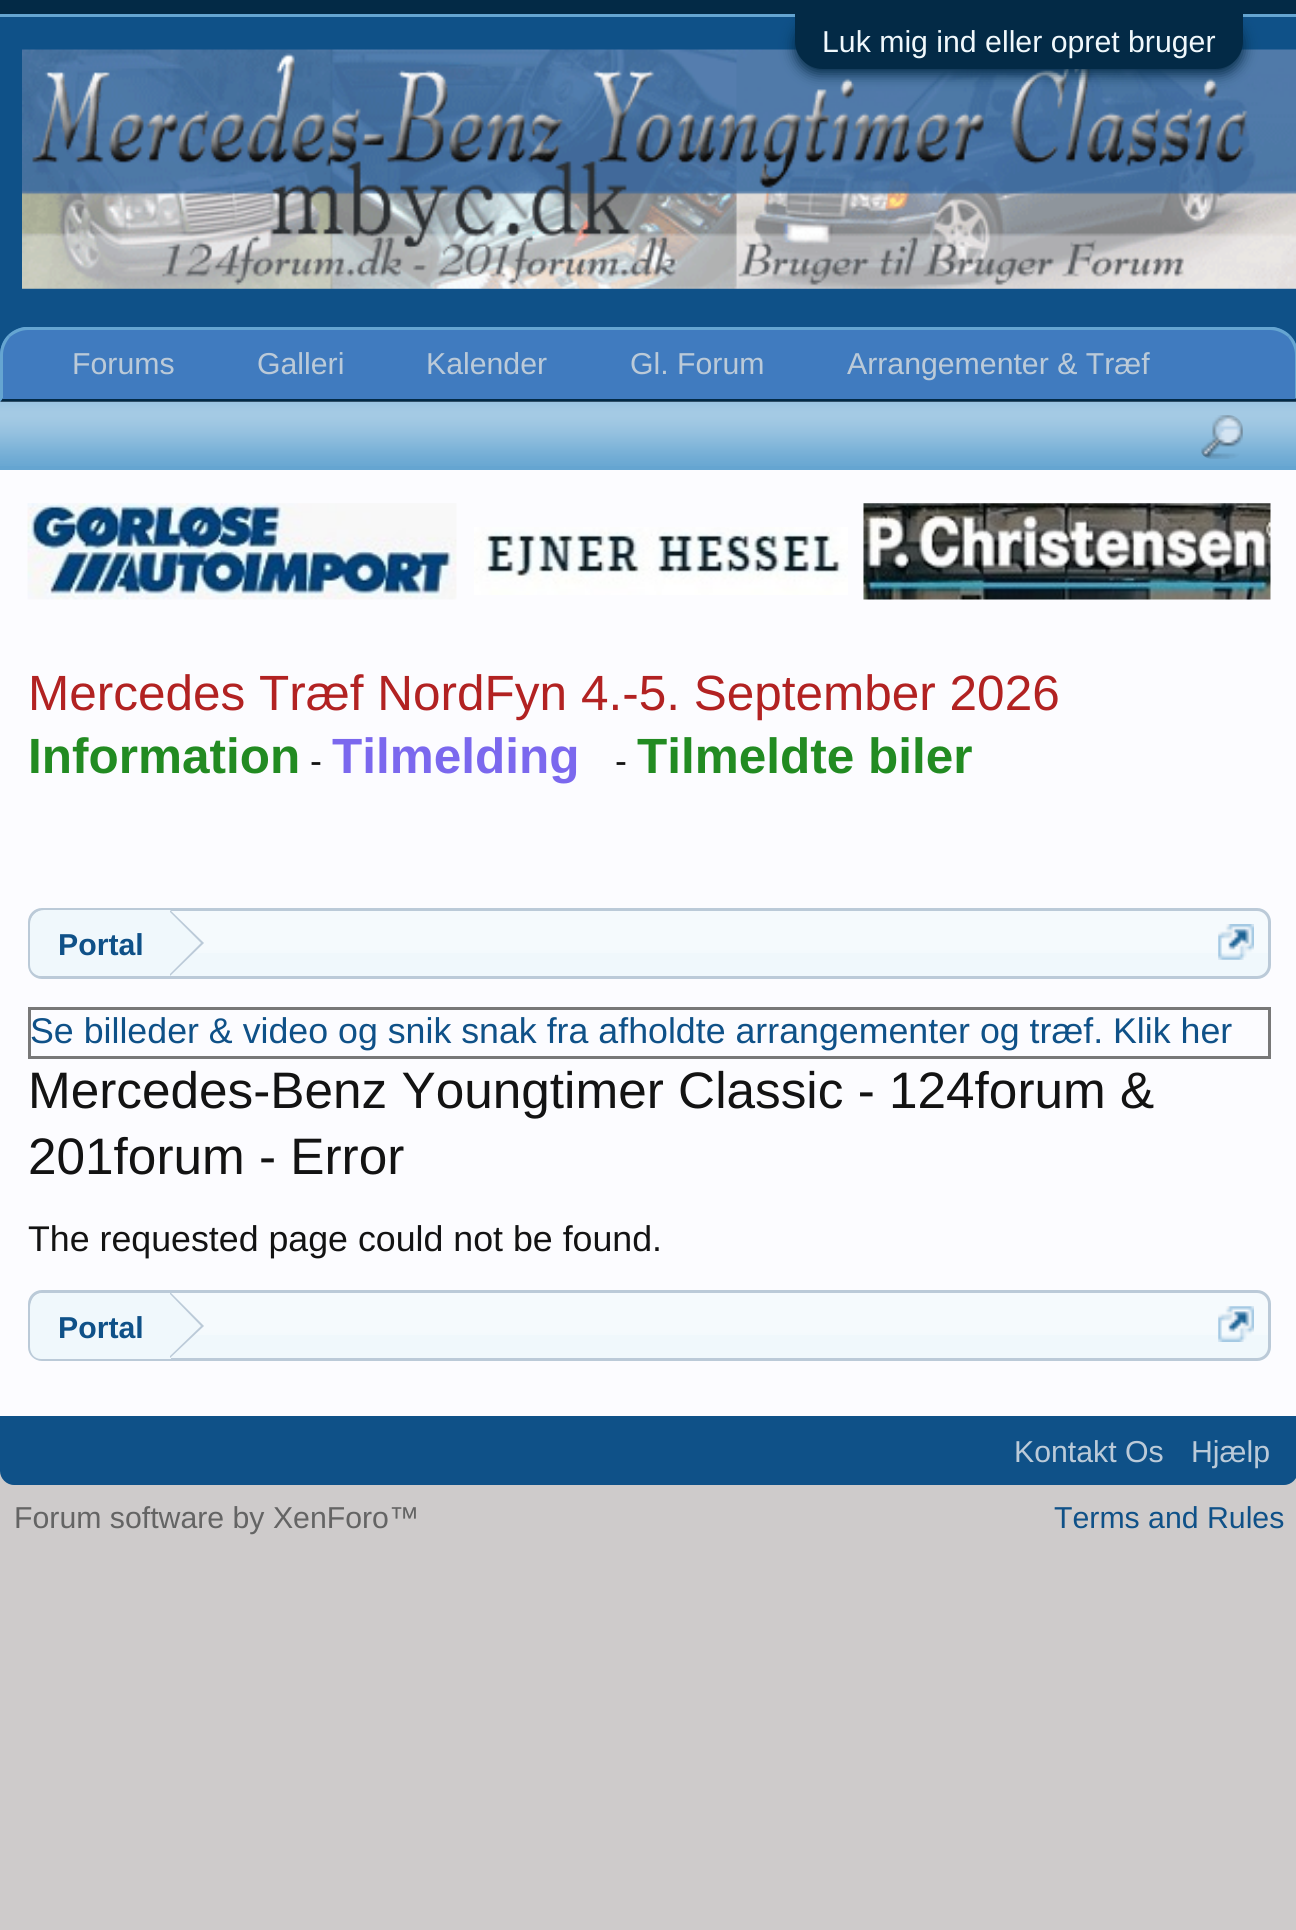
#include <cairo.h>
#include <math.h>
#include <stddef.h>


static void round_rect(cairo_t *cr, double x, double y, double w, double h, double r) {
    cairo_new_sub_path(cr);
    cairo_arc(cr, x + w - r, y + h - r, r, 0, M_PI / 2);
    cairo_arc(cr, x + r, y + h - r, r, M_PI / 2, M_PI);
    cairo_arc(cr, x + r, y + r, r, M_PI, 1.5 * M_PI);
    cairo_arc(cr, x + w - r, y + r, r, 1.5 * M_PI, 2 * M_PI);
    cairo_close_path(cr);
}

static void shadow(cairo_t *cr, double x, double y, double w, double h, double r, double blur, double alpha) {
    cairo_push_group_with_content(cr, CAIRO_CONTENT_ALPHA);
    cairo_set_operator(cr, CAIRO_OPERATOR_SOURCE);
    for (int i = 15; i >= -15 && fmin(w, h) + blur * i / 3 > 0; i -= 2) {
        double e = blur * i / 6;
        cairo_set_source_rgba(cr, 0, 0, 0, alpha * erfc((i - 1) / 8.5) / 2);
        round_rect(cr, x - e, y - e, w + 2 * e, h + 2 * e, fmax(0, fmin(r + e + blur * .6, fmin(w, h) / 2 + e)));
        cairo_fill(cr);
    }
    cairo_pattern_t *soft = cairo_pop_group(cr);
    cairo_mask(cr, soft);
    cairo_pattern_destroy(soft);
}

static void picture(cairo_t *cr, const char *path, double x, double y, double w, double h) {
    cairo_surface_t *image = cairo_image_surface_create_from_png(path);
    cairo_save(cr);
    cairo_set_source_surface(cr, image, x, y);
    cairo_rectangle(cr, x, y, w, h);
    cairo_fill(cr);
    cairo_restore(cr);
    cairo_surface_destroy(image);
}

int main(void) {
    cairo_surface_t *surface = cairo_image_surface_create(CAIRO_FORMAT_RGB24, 1296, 1930);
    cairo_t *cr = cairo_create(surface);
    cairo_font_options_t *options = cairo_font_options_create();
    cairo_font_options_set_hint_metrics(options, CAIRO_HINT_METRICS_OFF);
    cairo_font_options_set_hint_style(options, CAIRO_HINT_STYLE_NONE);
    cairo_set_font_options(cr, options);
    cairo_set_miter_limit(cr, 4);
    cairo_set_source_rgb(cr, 0.808, 0.796, 0.796);
    cairo_paint(cr);
    cairo_set_source_rgb(cr, 0.012, 0.165, 0.275);
    cairo_rectangle(cr, 0, 0, 1296, 14);
    cairo_fill(cr);
    cairo_set_source_rgb(cr, 0.396, 0.647, 0.82);
    cairo_rectangle(cr, 0, 14, 1296, 3);
    cairo_fill(cr);
    cairo_set_source_rgb(cr, 0.059, 0.318, 0.533);
    cairo_rectangle(cr, 0, 17, 1296, 338);
    cairo_fill(cr);
    picture(cr, "img1.png", 22, 49, 1274, 240);
    cairo_set_source_rgb(cr, 0.012, 0.165, 0.275);
    shadow(cr, 795, 19, 448, 55, 27.5, 7, 1);
    cairo_set_source_rgb(cr, 0.012, 0.165, 0.275);
    cairo_new_path(cr);
    cairo_move_to(cr, 795, 14);
    cairo_line_to(cr, 1243, 14);
    cairo_line_to(cr, 1243, 41.5);
    cairo_curve_to(cr, 1243, 56.5, 1230.5, 69, 1215.5, 69);
    cairo_line_to(cr, 822.5, 69);
    cairo_curve_to(cr, 807.5, 69, 795, 56.5, 795, 41.5);
    cairo_close_path(cr);
    cairo_fill(cr);
    cairo_select_font_face(cr, "Liberation Sans", CAIRO_FONT_SLANT_NORMAL, CAIRO_FONT_WEIGHT_NORMAL);
    cairo_set_font_size(cr, 30.25);
    cairo_set_source_rgb(cr, 0.941, 0.969, 0.988);
    cairo_move_to(cr, 822, 52);
    cairo_show_text(cr, "Luk mig ind eller opret bruger");
    cairo_set_source_rgb(cr, 0.251, 0.482, 0.749);
    cairo_new_path(cr);
    cairo_move_to(cr, 28, 327);
    cairo_line_to(cr, 1270, 327);
    cairo_curve_to(cr, 1285.5, 327, 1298, 339.5, 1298, 355);
    cairo_line_to(cr, 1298, 402);
    cairo_line_to(cr, 0, 402);
    cairo_line_to(cr, 0, 355);
    cairo_curve_to(cr, 0, 339.5, 12.5, 327, 28, 327);
    cairo_close_path(cr);
    cairo_fill(cr);
    cairo_set_source_rgb(cr, 0.396, 0.647, 0.82);
    cairo_new_path(cr);
    cairo_move_to(cr, 28, 330);
    cairo_curve_to(cr, 21, 330, 15, 333, 10, 337);
    cairo_line_to(cr, 8, 335);
    cairo_curve_to(cr, 12, 331, 18, 328, 24, 327);
    cairo_line_to(cr, 1274, 327);
    cairo_curve_to(cr, 1280, 328, 1286, 331, 1290, 335);
    cairo_line_to(cr, 1288, 337);
    cairo_curve_to(cr, 1283, 333, 1277, 330, 1270, 330);
    cairo_close_path(cr);
    cairo_fill(cr);
    cairo_new_path(cr);
    cairo_move_to(cr, 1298, 402);
    cairo_line_to(cr, 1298, 355);
    cairo_curve_to(cr, 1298, 347, 1295, 340, 1290, 335);
    cairo_line_to(cr, 1288, 337);
    cairo_curve_to(cr, 1292, 342, 1295, 348, 1295, 355);
    cairo_line_to(cr, 1295, 398);
    cairo_close_path(cr);
    cairo_fill(cr);
    cairo_set_source_rgb(cr, 0.012, 0.165, 0.275);
    cairo_new_path(cr);
    cairo_move_to(cr, 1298, 402);
    cairo_line_to(cr, 0, 402);
    cairo_line_to(cr, 3, 398);
    cairo_line_to(cr, 3, 399);
    cairo_line_to(cr, 1295, 399);
    cairo_line_to(cr, 1295, 398);
    cairo_close_path(cr);
    cairo_fill(cr);
    cairo_set_source_rgb(cr, 0.396, 0.647, 0.82);
    cairo_new_path(cr);
    cairo_move_to(cr, 0, 402);
    cairo_line_to(cr, 3, 398);
    cairo_line_to(cr, 3, 355);
    cairo_curve_to(cr, 3, 348, 6, 342, 10, 337);
    cairo_line_to(cr, 8, 335);
    cairo_curve_to(cr, 3, 340, 0, 347, 0, 355);
    cairo_close_path(cr);
    cairo_fill(cr);
    cairo_set_source_rgb(cr, 0.733, 0.792, 0.847);
    cairo_move_to(cr, 72, 374);
    cairo_show_text(cr, "Forums");
    cairo_move_to(cr, 257, 374);
    cairo_show_text(cr, "Galleri");
    cairo_move_to(cr, 426, 374);
    cairo_show_text(cr, "Kalender");
    cairo_move_to(cr, 630, 374);
    cairo_show_text(cr, "Gl. Forum");
    cairo_move_to(cr, 847, 374);
    cairo_show_text(cr, "Arrangementer & Træf");
    cairo_set_source_rgb(cr, 0.396, 0.647, 0.82);
    cairo_rectangle(cr, 0, 402, 1296, 68);
    cairo_fill(cr);
    picture(cr, "img2.png", 0, 401, 1296, 65);
    picture(cr, "img3.png", 1201, 415, 42, 44);
    cairo_set_source_rgb(cr, 0.988, 0.988, 1);
    cairo_rectangle(cr, 0, 470, 1296, 946);
    cairo_fill(cr);
    picture(cr, "img4.png", 27, 503, 430, 97);
    picture(cr, "img5.png", 474, 527, 374, 68);
    picture(cr, "img6.png", 863, 503, 408, 97);
    cairo_set_font_size(cr, 49.5);
    cairo_set_source_rgb(cr, 0.698, 0.133, 0.133);
    cairo_move_to(cr, 28, 710);
    cairo_show_text(cr, "Mercedes Træf NordFyn 4.-5. September 2026");
    cairo_select_font_face(cr, "Liberation Sans", CAIRO_FONT_SLANT_NORMAL, CAIRO_FONT_WEIGHT_BOLD);
    cairo_set_source_rgb(cr, 0.133, 0.545, 0.133);
    cairo_move_to(cr, 28, 773);
    cairo_show_text(cr, "Information");
    cairo_select_font_face(cr, "Liberation Sans", CAIRO_FONT_SLANT_NORMAL, CAIRO_FONT_WEIGHT_NORMAL);
    cairo_set_font_size(cr, 35.75);
    cairo_set_source_rgb(cr, 0.078, 0.078, 0.078);
    cairo_move_to(cr, 310, 773);
    cairo_show_text(cr, "-");
    cairo_select_font_face(cr, "Liberation Sans", CAIRO_FONT_SLANT_NORMAL, CAIRO_FONT_WEIGHT_BOLD);
    cairo_set_font_size(cr, 49.5);
    cairo_set_source_rgb(cr, 0.482, 0.408, 0.933);
    cairo_move_to(cr, 332, 773);
    cairo_show_text(cr, "Tilmelding");
    cairo_select_font_face(cr, "Liberation Sans", CAIRO_FONT_SLANT_NORMAL, CAIRO_FONT_WEIGHT_NORMAL);
    cairo_set_font_size(cr, 35.75);
    cairo_set_source_rgb(cr, 0.078, 0.078, 0.078);
    cairo_move_to(cr, 615, 773);
    cairo_show_text(cr, "-");
    cairo_select_font_face(cr, "Liberation Sans", CAIRO_FONT_SLANT_NORMAL, CAIRO_FONT_WEIGHT_BOLD);
    cairo_set_font_size(cr, 49.5);
    cairo_set_source_rgb(cr, 0.133, 0.545, 0.133);
    cairo_move_to(cr, 637, 773);
    cairo_show_text(cr, "Tilmeldte biler");
    cairo_set_source_rgb(cr, 0.941, 0.969, 0.988);
    round_rect(cr, 28, 908, 1243, 71, 14);
    cairo_fill(cr);
    picture(cr, "img7.png", 28, 911, 1242, 42);
    round_rect(cr, 29.5, 909.5, 1240, 68, 12.5);
    cairo_set_source_rgb(cr, 0.733, 0.792, 0.847);
    cairo_set_line_width(cr, 3);
    cairo_stroke(cr);
    cairo_save(cr);
    round_rect(cr, 30, 910, 1238, 66, 11);
    cairo_clip(cr);
    cairo_set_source_rgb(cr, 0.941, 0.969, 0.988);
    cairo_new_path(cr);
    cairo_move_to(cr, 44, 910);
    cairo_line_to(cr, 171, 910);
    cairo_line_to(cr, 171, 979);
    cairo_line_to(cr, 44, 979);
    cairo_curve_to(cr, 36.5, 979, 30, 972.5, 30, 965);
    cairo_line_to(cr, 30, 924);
    cairo_curve_to(cr, 30, 916.5, 36.5, 910, 44, 910);
    cairo_close_path(cr);
    cairo_fill(cr);
    cairo_restore(cr);
    cairo_set_font_size(cr, 30.25);
    cairo_set_source_rgb(cr, 0.059, 0.318, 0.533);
    cairo_move_to(cr, 58, 955);
    cairo_show_text(cr, "Portal");
    cairo_set_source_rgb(cr, 0.733, 0.792, 0.847);
    cairo_new_path(cr);
    cairo_move_to(cr, 170, 976);
    cairo_line_to(cr, 170, 910);
    cairo_line_to(cr, 204, 943);
    cairo_close_path(cr);
    cairo_fill(cr);
    cairo_set_source_rgb(cr, 0.941, 0.969, 0.988);
    cairo_new_path(cr);
    cairo_move_to(cr, 168, 976);
    cairo_line_to(cr, 168, 910);
    cairo_line_to(cr, 201, 943);
    cairo_close_path(cr);
    cairo_fill(cr);
    picture(cr, "img8.png", 1218, 924, 36, 36);
    cairo_rectangle(cr, 29.5, 1008.5, 1240, 49);
    cairo_set_source_rgb(cr, 0.471, 0.471, 0.471);
    cairo_stroke(cr);
    cairo_select_font_face(cr, "Liberation Sans", CAIRO_FONT_SLANT_NORMAL, CAIRO_FONT_WEIGHT_NORMAL);
    cairo_set_font_size(cr, 35.75);
    cairo_set_source_rgb(cr, 0.059, 0.318, 0.533);
    cairo_move_to(cr, 30, 1043);
    cairo_show_text(cr, "Se billeder & video og snik snak fra afholdte arrangementer og træf. Klik her");
    cairo_set_font_size(cr, 51.3);
    cairo_set_source_rgb(cr, 0.078, 0.078, 0.078);
    cairo_move_to(cr, 28, 1108);
    cairo_show_text(cr, "Mercedes-Benz Youngtimer Classic - 124forum &");
    cairo_move_to(cr, 28, 1174);
    cairo_show_text(cr, "201forum - Error");
    cairo_set_font_size(cr, 35.75);
    cairo_move_to(cr, 28, 1251);
    cairo_show_text(cr, "The requested page could not be found.");
    cairo_set_source_rgb(cr, 0.941, 0.969, 0.988);
    round_rect(cr, 28, 1290, 1243, 71, 14);
    cairo_fill(cr);
    picture(cr, "img9.png", 28, 1293, 1242, 42);
    round_rect(cr, 29.5, 1291.5, 1240, 68, 12.5);
    cairo_set_source_rgb(cr, 0.733, 0.792, 0.847);
    cairo_stroke(cr);
    cairo_save(cr);
    round_rect(cr, 30, 1293, 1238, 66, 11);
    cairo_clip(cr);
    cairo_set_source_rgb(cr, 0.941, 0.969, 0.988);
    cairo_new_path(cr);
    cairo_move_to(cr, 44, 1293);
    cairo_line_to(cr, 171, 1293);
    cairo_line_to(cr, 171, 1361);
    cairo_line_to(cr, 44, 1361);
    cairo_curve_to(cr, 36.5, 1361, 30, 1354.5, 30, 1347);
    cairo_line_to(cr, 30, 1307);
    cairo_curve_to(cr, 30, 1299.5, 36.5, 1293, 44, 1293);
    cairo_close_path(cr);
    cairo_fill(cr);
    cairo_restore(cr);
    cairo_select_font_face(cr, "Liberation Sans", CAIRO_FONT_SLANT_NORMAL, CAIRO_FONT_WEIGHT_BOLD);
    cairo_set_font_size(cr, 30.25);
    cairo_set_source_rgb(cr, 0.059, 0.318, 0.533);
    cairo_move_to(cr, 58, 1338);
    cairo_show_text(cr, "Portal");
    cairo_set_source_rgb(cr, 0.733, 0.792, 0.847);
    cairo_new_path(cr);
    cairo_move_to(cr, 170, 1358);
    cairo_line_to(cr, 204, 1326);
    cairo_line_to(cr, 171, 1293);
    cairo_line_to(cr, 170, 1293);
    cairo_close_path(cr);
    cairo_fill(cr);
    cairo_set_source_rgb(cr, 0.941, 0.969, 0.988);
    cairo_new_path(cr);
    cairo_move_to(cr, 168, 1358);
    cairo_line_to(cr, 201, 1326);
    cairo_line_to(cr, 169, 1293);
    cairo_line_to(cr, 168, 1293);
    cairo_close_path(cr);
    cairo_fill(cr);
    picture(cr, "img10.png", 1218, 1306, 36, 36);
    cairo_set_source_rgb(cr, 0.059, 0.318, 0.533);
    cairo_new_path(cr);
    cairo_move_to(cr, 0, 1416);
    cairo_line_to(cr, 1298, 1416);
    cairo_line_to(cr, 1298, 1471);
    cairo_curve_to(cr, 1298, 1478.5, 1291.5, 1485, 1284, 1485);
    cairo_line_to(cr, 14, 1485);
    cairo_curve_to(cr, 6.5, 1485, 0, 1478.5, 0, 1471);
    cairo_close_path(cr);
    cairo_fill(cr);
    cairo_select_font_face(cr, "Liberation Sans", CAIRO_FONT_SLANT_NORMAL, CAIRO_FONT_WEIGHT_NORMAL);
    cairo_set_source_rgb(cr, 0.733, 0.792, 0.847);
    cairo_move_to(cr, 1014, 1462);
    cairo_show_text(cr, "Kontakt Os");
    cairo_move_to(cr, 1191, 1462);
    cairo_show_text(cr, "Hjælp");
    cairo_set_source_rgb(cr, 0.392, 0.392, 0.392);
    cairo_move_to(cr, 14, 1528);
    cairo_show_text(cr, "Forum software by XenForo™");
    cairo_set_source_rgb(cr, 0.059, 0.318, 0.533);
    cairo_move_to(cr, 1054, 1528);
    cairo_show_text(cr, "Terms and Rules");
    cairo_surface_write_to_png(surface, "page.png");
    cairo_font_options_destroy(options);
    cairo_destroy(cr);
    cairo_surface_destroy(surface);
    return 0;
}
